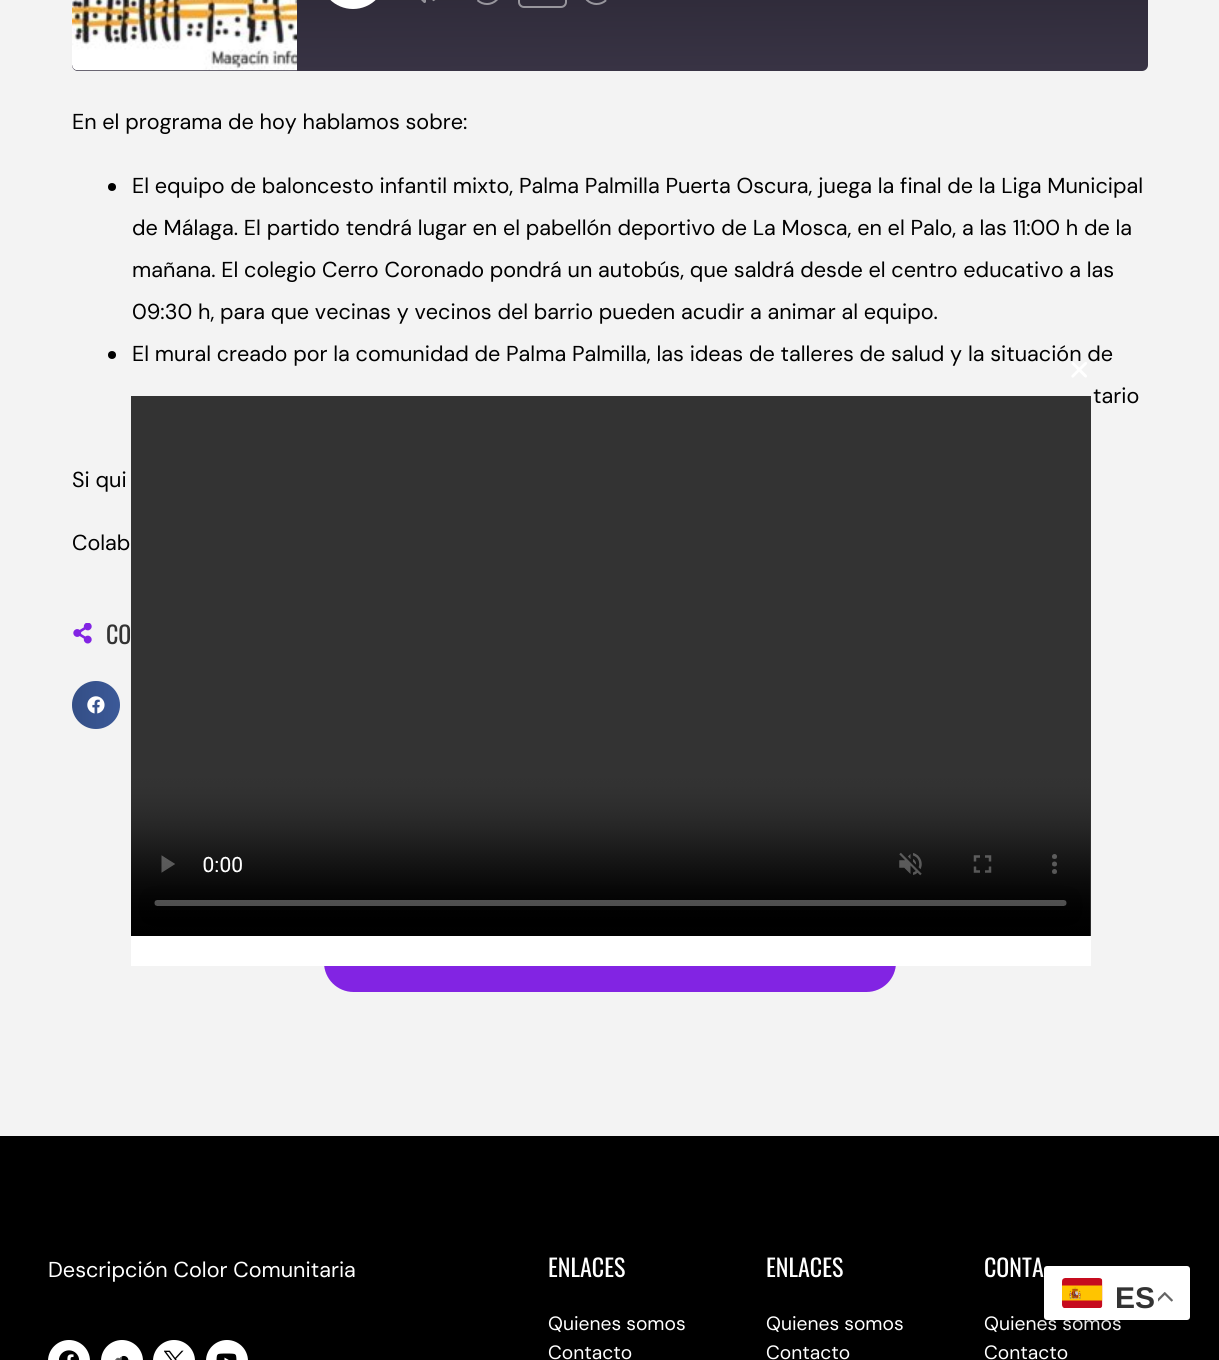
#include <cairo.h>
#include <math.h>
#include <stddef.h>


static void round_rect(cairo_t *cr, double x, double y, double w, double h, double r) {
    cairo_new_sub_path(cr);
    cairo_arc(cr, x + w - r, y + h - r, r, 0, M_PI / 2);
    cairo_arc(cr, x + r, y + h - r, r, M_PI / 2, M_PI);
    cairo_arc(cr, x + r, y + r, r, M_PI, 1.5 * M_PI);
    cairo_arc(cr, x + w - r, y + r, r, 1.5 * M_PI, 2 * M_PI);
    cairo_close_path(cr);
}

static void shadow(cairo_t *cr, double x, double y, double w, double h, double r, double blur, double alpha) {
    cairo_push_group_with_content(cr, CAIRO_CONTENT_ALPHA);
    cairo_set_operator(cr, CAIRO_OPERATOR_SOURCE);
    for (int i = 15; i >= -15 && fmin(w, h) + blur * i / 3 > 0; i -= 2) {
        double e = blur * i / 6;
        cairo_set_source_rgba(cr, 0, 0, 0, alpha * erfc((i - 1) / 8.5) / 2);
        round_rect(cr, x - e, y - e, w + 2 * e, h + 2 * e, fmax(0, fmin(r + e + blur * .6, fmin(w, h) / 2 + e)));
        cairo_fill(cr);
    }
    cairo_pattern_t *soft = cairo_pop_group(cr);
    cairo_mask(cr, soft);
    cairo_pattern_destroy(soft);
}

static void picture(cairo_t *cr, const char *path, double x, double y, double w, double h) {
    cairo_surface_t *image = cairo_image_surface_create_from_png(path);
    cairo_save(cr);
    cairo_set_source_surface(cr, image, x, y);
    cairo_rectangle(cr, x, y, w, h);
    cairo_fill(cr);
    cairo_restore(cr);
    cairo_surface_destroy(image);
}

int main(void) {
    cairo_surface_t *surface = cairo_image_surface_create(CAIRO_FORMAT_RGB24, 1219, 1360);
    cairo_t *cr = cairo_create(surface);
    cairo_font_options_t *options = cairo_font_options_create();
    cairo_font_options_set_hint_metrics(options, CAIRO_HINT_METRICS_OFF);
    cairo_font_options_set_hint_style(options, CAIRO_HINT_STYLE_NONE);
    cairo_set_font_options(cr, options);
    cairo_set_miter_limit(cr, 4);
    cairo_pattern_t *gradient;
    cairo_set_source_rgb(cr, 0.953, 0.953, 0.953);
    cairo_paint(cr);
    gradient = cairo_pattern_create_linear(610, 73, 609, -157);
    cairo_pattern_add_color_stop_rgba(gradient, 0.01, 0.22, 0.2, 0.267, 1);
    cairo_pattern_add_color_stop_rgba(gradient, 0.78, 0.141, 0.129, 0.173, 1);
    cairo_set_source(cr, gradient);
    cairo_pattern_destroy(gradient);
    round_rect(cr, 72, -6, 1076, 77, 6);
    cairo_fill(cr);
    cairo_set_source_rgb(cr, 1, 1, 1);
    round_rect(cr, 320, -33, 66, 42, 33);
    cairo_fill(cr);
    picture(cr, "img1.png", 421, 0, 15, 3);
    picture(cr, "img2.png", 477, 0, 21, 5);
    round_rect(cr, 519, -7, 47, 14, 5);
    cairo_set_source_rgb(cr, 0.596, 0.588, 0.616);
    cairo_stroke(cr);
    picture(cr, "img3.png", 585, 0, 22, 5);
    picture(cr, "img4.png", 72, 0, 225, 71);
    cairo_select_font_face(cr, "DM Sans", CAIRO_FONT_SLANT_NORMAL, CAIRO_FONT_WEIGHT_NORMAL);
    cairo_set_font_size(cr, 21.6);
    cairo_set_source_rgb(cr, 0, 0, 0);
    cairo_move_to(cr, 72, 129);
    cairo_show_text(cr, "En el programa de hoy hablamos sobre:");
    cairo_new_path(cr);
    cairo_arc(cr, 112, 187, 4, 0, 2 * M_PI);
    cairo_fill(cr);
    cairo_move_to(cr, 132, 193);
    cairo_show_text(cr, "El equipo de baloncesto infantil mixto, Palma Palmilla Puerta Oscura, juega la final de la Liga Municipal");
    cairo_move_to(cr, 132, 235);
    cairo_show_text(cr, "de Málaga. El partido tendrá lugar en el pabellón deportivo de La Mosca, en el Palo, a las 11:00 h de la");
    cairo_move_to(cr, 132, 277);
    cairo_show_text(cr, "mañana. El colegio Cerro Coronado pondrá un autobús, que saldrá desde el centro educativo a las");
    cairo_move_to(cr, 132, 319);
    cairo_show_text(cr, "09:30 h, para que vecinas y vecinos del barrio pueden acudir a animar al equipo.");
    cairo_new_path(cr);
    cairo_arc(cr, 112, 355, 4, 0, 2 * M_PI);
    cairo_fill(cr);
    cairo_move_to(cr, 132, 361);
    cairo_show_text(cr, "El mural creado por la comunidad de Palma Palmilla, las ideas de talleres de salud y la situación de");
    cairo_move_to(cr, 1093, 403);
    cairo_show_text(cr, "tario");
    cairo_move_to(cr, 72, 487);
    cairo_show_text(cr, "Si qui");
    cairo_move_to(cr, 72, 550);
    cairo_show_text(cr, "Colab");
    picture(cr, "img5.png", 73, 623, 19, 21);
    cairo_select_font_face(cr, "Oswald", CAIRO_FONT_SLANT_NORMAL, CAIRO_FONT_WEIGHT_NORMAL);
    cairo_set_font_size(cr, 24);
    cairo_set_source_rgb(cr, 0.2, 0.2, 0.2);
    cairo_move_to(cr, 106, 644);
    cairo_show_text(cr, "CO");
    cairo_set_source_rgb(cr, 0.231, 0.349, 0.596);
    cairo_new_path(cr);
    cairo_arc(cr, 96, 705, 24, 0, 2 * M_PI);
    cairo_fill(cr);
    gradient = cairo_pattern_create_linear(72, 705, 120, 705);
    cairo_pattern_add_color_stop_rgba(gradient, 0, 0, 0, 0, 0.12);
    cairo_pattern_add_color_stop_rgba(gradient, 1, 0, 0, 0, 0);
    cairo_set_source(cr, gradient);
    cairo_pattern_destroy(gradient);
    cairo_arc(cr, 96, 705, 24, 0, 2 * M_PI);
    cairo_fill(cr);
    picture(cr, "img6.png", 87, 696, 18, 18);
    cairo_set_source_rgb(cr, 0.51, 0.141, 0.89);
    round_rect(cr, 324, 933, 572, 59, 29.5);
    cairo_fill(cr);
    cairo_set_source_rgb(cr, 1, 1, 1);
    cairo_rectangle(cr, 131, 936, 960, 30);
    cairo_fill(cr);
    picture(cr, "img7.png", 1071, 362, 16, 16);
    picture(cr, "img8.png", 131, 396, 960, 540);
    cairo_set_source_rgb(cr, 0, 0, 0);
    cairo_rectangle(cr, 0, 1136, 1219, 224);
    cairo_fill(cr);
    cairo_select_font_face(cr, "DM Sans", CAIRO_FONT_SLANT_NORMAL, CAIRO_FONT_WEIGHT_NORMAL);
    cairo_set_font_size(cr, 21.6);
    cairo_set_source_rgb(cr, 1, 1, 1);
    cairo_move_to(cr, 48, 1277);
    cairo_show_text(cr, "Descripción Color Comunitaria");
    round_rect(cr, 48, 1340, 42, 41, 21);
    cairo_fill(cr);
    picture(cr, "img9.png", 59, 1350, 21, 10);
    round_rect(cr, 101, 1340, 42, 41, 21);
    cairo_fill(cr);
    picture(cr, "img10.png", 115, 1355, 15, 5);
    round_rect(cr, 153, 1340, 42, 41, 21);
    cairo_fill(cr);
    picture(cr, "img11.png", 164, 1350, 20, 10);
    round_rect(cr, 206, 1340, 42, 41, 21);
    cairo_fill(cr);
    picture(cr, "img12.png", 216, 1353, 21, 7);
    cairo_select_font_face(cr, "Oswald", CAIRO_FONT_SLANT_NORMAL, CAIRO_FONT_WEIGHT_NORMAL);
    cairo_set_font_size(cr, 24);
    cairo_move_to(cr, 548, 1277);
    cairo_show_text(cr, "ENLACES");
    cairo_select_font_face(cr, "DM Sans", CAIRO_FONT_SLANT_NORMAL, CAIRO_FONT_WEIGHT_NORMAL);
    cairo_set_font_size(cr, 19.25);
    cairo_move_to(cr, 548, 1330);
    cairo_show_text(cr, "Quienes somos");
    cairo_move_to(cr, 548, 1359);
    cairo_show_text(cr, "Contacto");
    cairo_select_font_face(cr, "Oswald", CAIRO_FONT_SLANT_NORMAL, CAIRO_FONT_WEIGHT_NORMAL);
    cairo_set_font_size(cr, 24);
    cairo_move_to(cr, 766, 1277);
    cairo_show_text(cr, "ENLACES");
    cairo_select_font_face(cr, "DM Sans", CAIRO_FONT_SLANT_NORMAL, CAIRO_FONT_WEIGHT_NORMAL);
    cairo_set_font_size(cr, 19.25);
    cairo_move_to(cr, 766, 1330);
    cairo_show_text(cr, "Quienes somos");
    cairo_move_to(cr, 766, 1359);
    cairo_show_text(cr, "Contacto");
    cairo_select_font_face(cr, "Oswald", CAIRO_FONT_SLANT_NORMAL, CAIRO_FONT_WEIGHT_NORMAL);
    cairo_set_font_size(cr, 24);
    cairo_move_to(cr, 984, 1277);
    cairo_show_text(cr, "CONTA");
    cairo_select_font_face(cr, "DM Sans", CAIRO_FONT_SLANT_NORMAL, CAIRO_FONT_WEIGHT_NORMAL);
    cairo_set_font_size(cr, 19.25);
    cairo_move_to(cr, 984, 1330);
    cairo_show_text(cr, "Quienes somos");
    cairo_move_to(cr, 984, 1359);
    cairo_show_text(cr, "Contacto");
    cairo_set_source_rgb(cr, 0, 0, 0);
    shadow(cr, 1044, 1274, 146, 54, 3, 11, 0.15);
    cairo_set_source_rgb(cr, 1, 1, 1);
    round_rect(cr, 1044, 1266, 146, 54, 3);
    cairo_fill(cr);
    picture(cr, "img13.png", 1062, 1278, 41, 30);
    cairo_select_font_face(cr, "Liberation Sans", CAIRO_FONT_SLANT_NORMAL, CAIRO_FONT_WEIGHT_BOLD);
    cairo_set_font_size(cr, 30);
    cairo_set_source_rgb(cr, 0.2, 0.2, 0.2);
    cairo_move_to(cr, 1115, 1308);
    cairo_show_text(cr, "ES");
    picture(cr, "img14.png", 1158, 1292, 15, 10);
    cairo_surface_write_to_png(surface, "page.png");
    cairo_font_options_destroy(options);
    cairo_destroy(cr);
    cairo_surface_destroy(surface);
    return 0;
}
